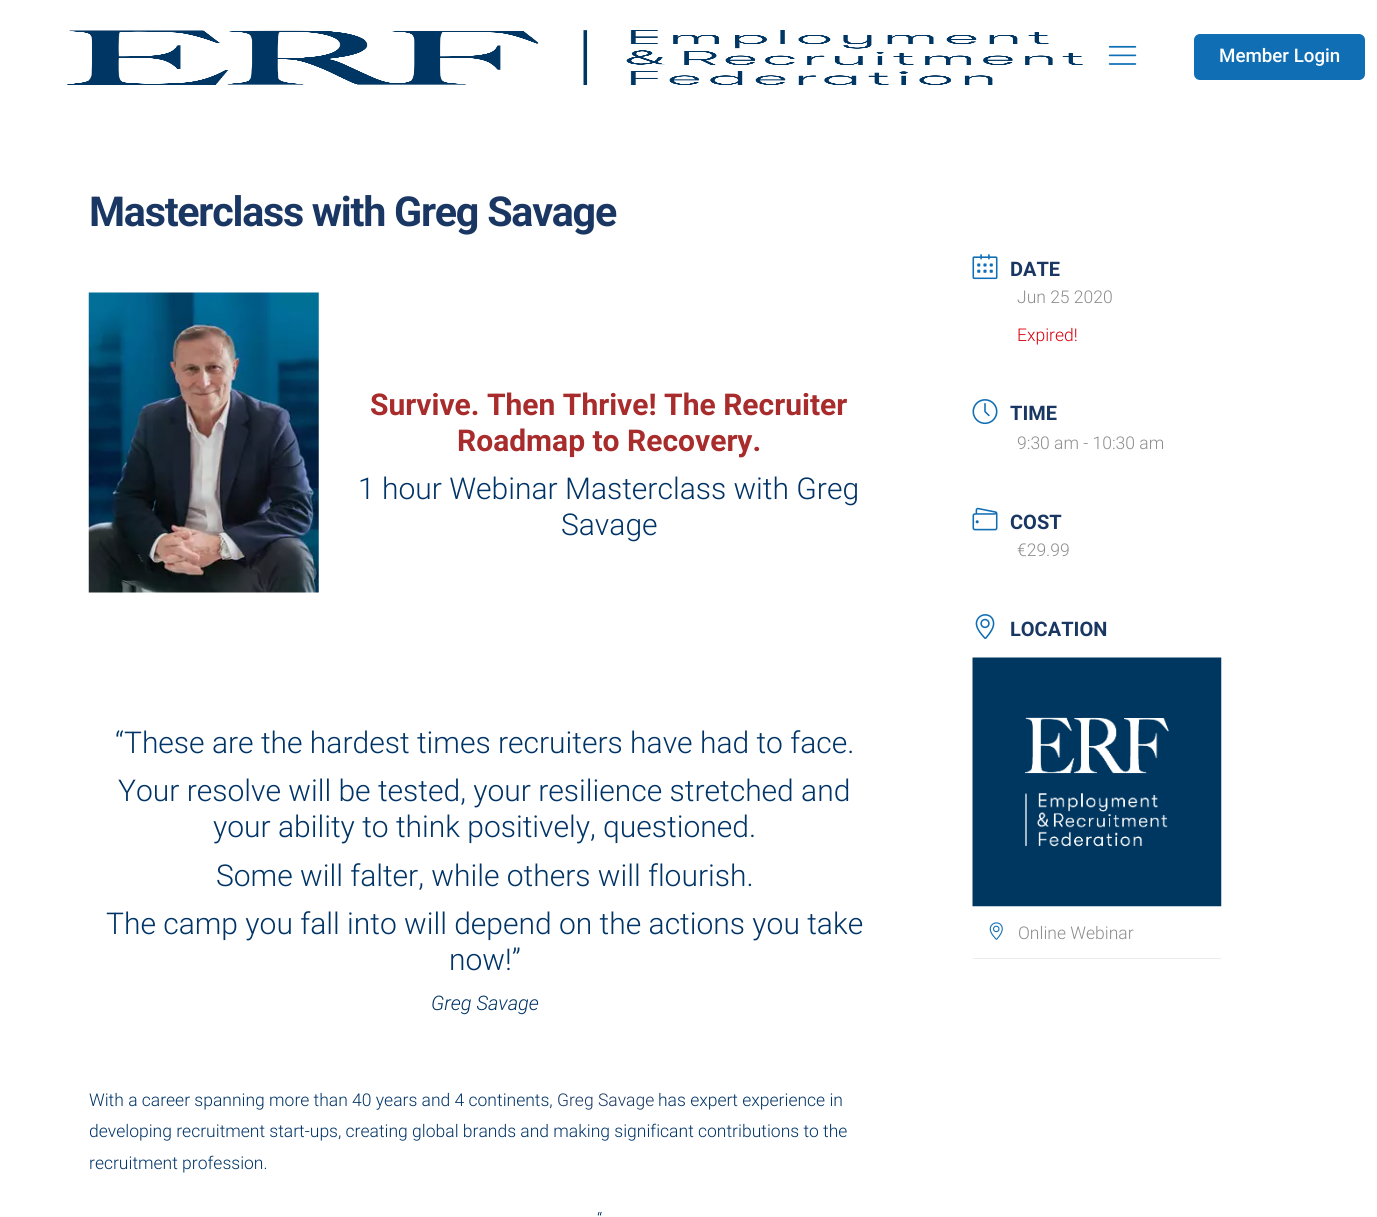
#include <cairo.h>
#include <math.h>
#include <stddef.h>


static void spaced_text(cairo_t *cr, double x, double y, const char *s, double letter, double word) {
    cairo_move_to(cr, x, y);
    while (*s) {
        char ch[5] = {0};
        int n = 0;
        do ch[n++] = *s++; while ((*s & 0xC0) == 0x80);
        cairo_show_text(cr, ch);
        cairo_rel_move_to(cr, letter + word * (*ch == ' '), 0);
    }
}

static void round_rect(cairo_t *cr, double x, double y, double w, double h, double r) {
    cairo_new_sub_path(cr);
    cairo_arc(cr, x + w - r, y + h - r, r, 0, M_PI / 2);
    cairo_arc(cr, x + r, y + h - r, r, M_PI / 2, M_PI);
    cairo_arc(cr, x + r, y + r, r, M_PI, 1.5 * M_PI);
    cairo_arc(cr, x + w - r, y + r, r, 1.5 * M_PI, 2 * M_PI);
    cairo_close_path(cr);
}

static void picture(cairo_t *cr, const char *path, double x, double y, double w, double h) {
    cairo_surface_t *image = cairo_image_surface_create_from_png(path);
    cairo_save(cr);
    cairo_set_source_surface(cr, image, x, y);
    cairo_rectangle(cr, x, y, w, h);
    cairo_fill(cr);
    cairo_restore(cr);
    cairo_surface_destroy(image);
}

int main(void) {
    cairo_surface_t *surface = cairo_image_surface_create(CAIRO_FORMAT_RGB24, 1377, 1217);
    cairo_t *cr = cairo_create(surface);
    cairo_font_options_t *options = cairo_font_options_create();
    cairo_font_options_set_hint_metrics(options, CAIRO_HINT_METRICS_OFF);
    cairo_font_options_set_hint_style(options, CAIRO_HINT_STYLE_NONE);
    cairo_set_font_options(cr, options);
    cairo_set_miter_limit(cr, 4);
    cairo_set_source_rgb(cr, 1, 1, 1);
    cairo_paint(cr);
    picture(cr, "img1.png", 67, 30, 1016, 55);
    picture(cr, "img2.png", 1108, 45, 29, 20);
    cairo_set_source_rgb(cr, 0.063, 0.431, 0.71);
    round_rect(cr, 1194, 34, 171, 46, 6);
    cairo_fill(cr);
    cairo_select_font_face(cr, "Roboto Medium", CAIRO_FONT_SLANT_NORMAL, CAIRO_FONT_WEIGHT_NORMAL);
    cairo_set_font_size(cr, 18.75);
    cairo_set_source_rgb(cr, 1, 1, 1);
    cairo_move_to(cr, 1219, 62);
    cairo_show_text(cr, "Member Login");
    cairo_select_font_face(cr, "Roboto", CAIRO_FONT_SLANT_NORMAL, CAIRO_FONT_WEIGHT_BOLD);
    cairo_set_font_size(cr, 41.25);
    cairo_set_source_rgb(cr, 0.102, 0.216, 0.388);
    spaced_text(cr, 89, 226, "Masterclass with Greg Savage", -1.25, 0);
    picture(cr, "img3.png", 88, 292, 231, 301);
    cairo_set_font_size(cr, 30);
    cairo_set_source_rgb(cr, 0.655, 0.173, 0.169);
    cairo_move_to(cr, 370, 415);
    cairo_show_text(cr, "Survive. Then Thrive! The Recruiter");
    cairo_move_to(cr, 457, 451);
    cairo_show_text(cr, "Roadmap to Recovery.");
    cairo_select_font_face(cr, "Roboto Light", CAIRO_FONT_SLANT_NORMAL, CAIRO_FONT_WEIGHT_NORMAL);
    cairo_set_source_rgb(cr, 0, 0.2, 0.4);
    cairo_move_to(cr, 358, 499);
    cairo_show_text(cr, "1 hour Webinar Masterclass with Greg");
    cairo_move_to(cr, 561, 535);
    cairo_show_text(cr, "Savage");
    cairo_move_to(cr, 115, 753);
    cairo_show_text(cr, "“These are the hardest times recruiters have had to face.");
    cairo_move_to(cr, 118, 801);
    cairo_show_text(cr, "Your resolve will be tested, your resilience stretched and");
    cairo_move_to(cr, 213, 837);
    cairo_show_text(cr, "your ability to think positively, questioned.");
    cairo_move_to(cr, 216, 886);
    cairo_show_text(cr, "Some will falter, while others will flourish.");
    cairo_move_to(cr, 106, 934);
    cairo_show_text(cr, "The camp you fall into will depend on the actions you take");
    cairo_move_to(cr, 449, 970);
    cairo_show_text(cr, "now!”");
    cairo_select_font_face(cr, "Roboto Light", CAIRO_FONT_SLANT_ITALIC, CAIRO_FONT_WEIGHT_NORMAL);
    cairo_set_font_size(cr, 20);
    cairo_move_to(cr, 431, 1010);
    cairo_show_text(cr, "Greg Savage");
    cairo_select_font_face(cr, "Roboto Light", CAIRO_FONT_SLANT_NORMAL, CAIRO_FONT_WEIGHT_NORMAL);
    cairo_set_font_size(cr, 17.5);
    cairo_move_to(cr, 89, 1106);
    cairo_show_text(cr, "With a career spanning more than 40 years and 4 continents,");
    cairo_set_source_rgb(cr, 0.102, 0.216, 0.388);
    cairo_move_to(cr, 557, 1106);
    cairo_show_text(cr, "Greg Savage");
    cairo_set_source_rgb(cr, 0, 0.2, 0.4);
    cairo_move_to(cr, 658, 1106);
    cairo_show_text(cr, "has expert experience in");
    cairo_move_to(cr, 89, 1137);
    cairo_show_text(cr, "developing recruitment start-ups, creating global brands and making significant contributions to the");
    cairo_move_to(cr, 89, 1169);
    cairo_show_text(cr, "recruitment profession.");
    cairo_move_to(cr, 597, 1225);
    cairo_show_text(cr, "“");
    picture(cr, "img4.png", 972, 254, 26, 26);
    cairo_select_font_face(cr, "Roboto", CAIRO_FONT_SLANT_NORMAL, CAIRO_FONT_WEIGHT_BOLD);
    cairo_set_font_size(cr, 20);
    cairo_set_source_rgb(cr, 0.102, 0.216, 0.388);
    cairo_move_to(cr, 1010, 276);
    cairo_show_text(cr, "DATE");
    cairo_select_font_face(cr, "Roboto Light", CAIRO_FONT_SLANT_NORMAL, CAIRO_FONT_WEIGHT_NORMAL);
    cairo_set_font_size(cr, 17.5);
    cairo_set_source_rgb(cr, 0.553, 0.553, 0.553);
    cairo_move_to(cr, 1017, 303);
    cairo_show_text(cr, "Jun 25 2020");
    cairo_set_source_rgb(cr, 0.847, 0, 0.047);
    cairo_move_to(cr, 1017, 341);
    cairo_show_text(cr, "Expired!");
    picture(cr, "img5.png", 972, 399, 26, 26);
    cairo_select_font_face(cr, "Roboto", CAIRO_FONT_SLANT_NORMAL, CAIRO_FONT_WEIGHT_BOLD);
    cairo_set_font_size(cr, 20);
    cairo_set_source_rgb(cr, 0.102, 0.216, 0.388);
    cairo_move_to(cr, 1010, 420);
    cairo_show_text(cr, "TIME");
    cairo_select_font_face(cr, "Roboto Light", CAIRO_FONT_SLANT_NORMAL, CAIRO_FONT_WEIGHT_NORMAL);
    cairo_set_font_size(cr, 17.5);
    cairo_set_source_rgb(cr, 0.553, 0.553, 0.553);
    cairo_move_to(cr, 1017, 449);
    cairo_show_text(cr, "9:30 am - 10:30 am");
    picture(cr, "img6.png", 972, 507, 26, 24);
    cairo_select_font_face(cr, "Roboto", CAIRO_FONT_SLANT_NORMAL, CAIRO_FONT_WEIGHT_BOLD);
    cairo_set_font_size(cr, 20);
    cairo_set_source_rgb(cr, 0.102, 0.216, 0.388);
    cairo_move_to(cr, 1010, 529);
    cairo_show_text(cr, "COST");
    cairo_select_font_face(cr, "Roboto Light", CAIRO_FONT_SLANT_NORMAL, CAIRO_FONT_WEIGHT_NORMAL);
    cairo_set_font_size(cr, 17.5);
    cairo_set_source_rgb(cr, 0.553, 0.553, 0.553);
    cairo_move_to(cr, 1017, 556);
    cairo_show_text(cr, "€29.99");
    picture(cr, "img7.png", 975, 614, 20, 25);
    cairo_select_font_face(cr, "Roboto", CAIRO_FONT_SLANT_NORMAL, CAIRO_FONT_WEIGHT_BOLD);
    cairo_set_font_size(cr, 20);
    cairo_set_source_rgb(cr, 0.102, 0.216, 0.388);
    cairo_move_to(cr, 1010, 636);
    cairo_show_text(cr, "LOCATION");
    picture(cr, "img8.png", 972, 657, 250, 250);
    picture(cr, "img9.png", 989, 922, 14, 18);
    cairo_select_font_face(cr, "Roboto Light", CAIRO_FONT_SLANT_NORMAL, CAIRO_FONT_WEIGHT_NORMAL);
    cairo_set_font_size(cr, 17.5);
    cairo_set_source_rgb(cr, 0.553, 0.553, 0.553);
    cairo_move_to(cr, 1018, 939);
    cairo_show_text(cr, "Online Webinar");
    cairo_set_source_rgb(cr, 0.922, 0.922, 0.922);
    cairo_rectangle(cr, 973, 958, 248, 1);
    cairo_fill(cr);
    cairo_surface_write_to_png(surface, "page.png");
    cairo_font_options_destroy(options);
    cairo_destroy(cr);
    cairo_surface_destroy(surface);
    return 0;
}
